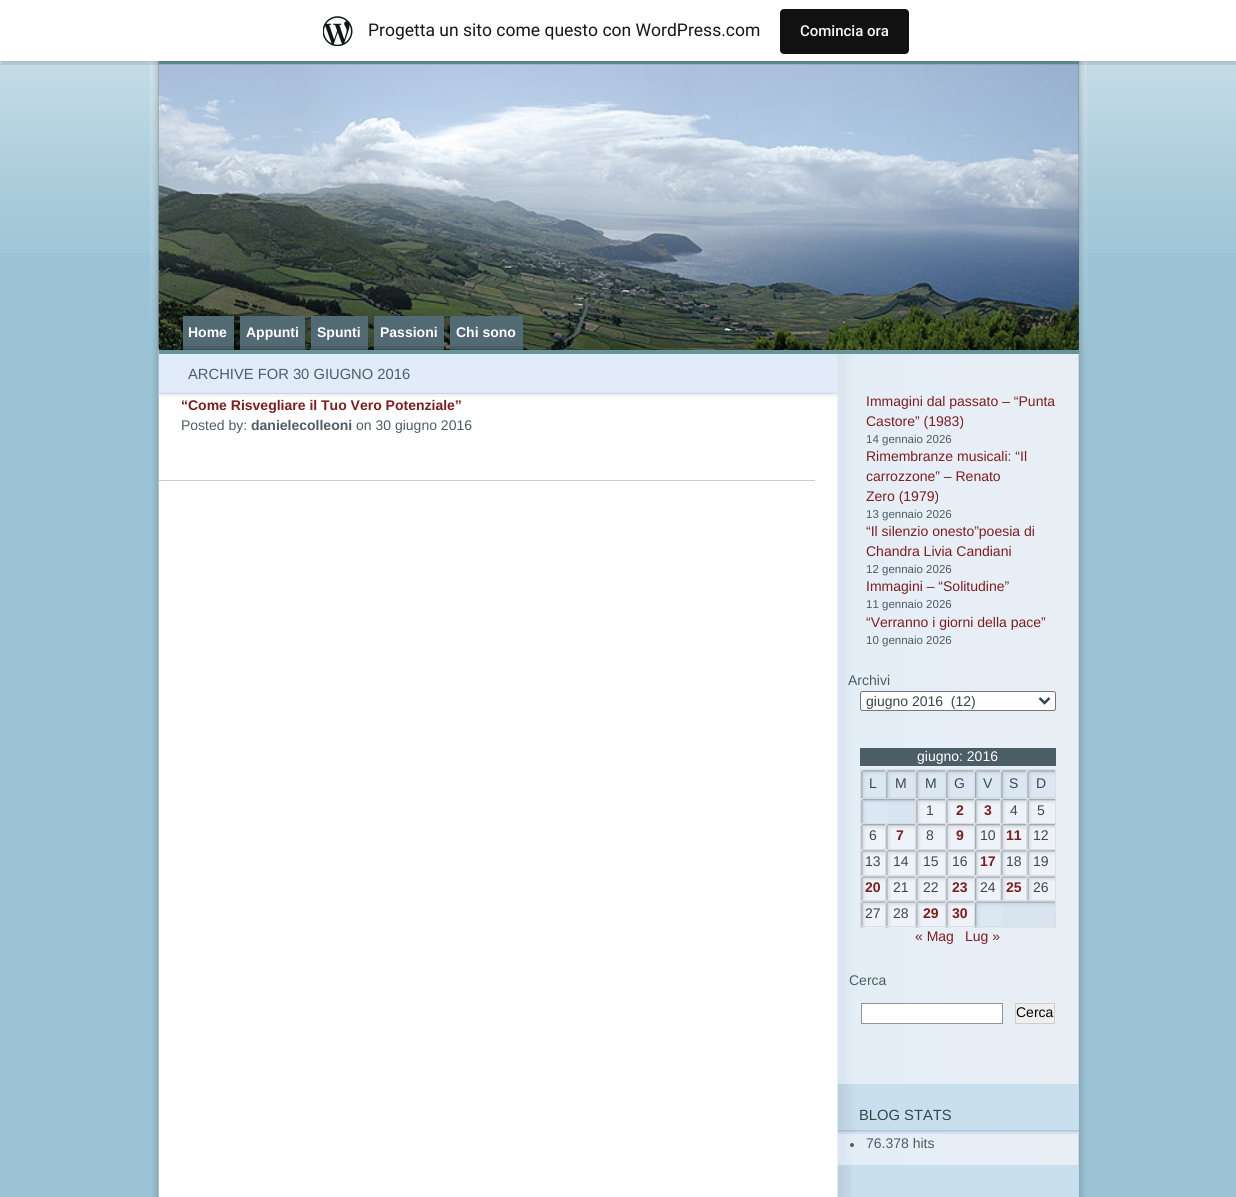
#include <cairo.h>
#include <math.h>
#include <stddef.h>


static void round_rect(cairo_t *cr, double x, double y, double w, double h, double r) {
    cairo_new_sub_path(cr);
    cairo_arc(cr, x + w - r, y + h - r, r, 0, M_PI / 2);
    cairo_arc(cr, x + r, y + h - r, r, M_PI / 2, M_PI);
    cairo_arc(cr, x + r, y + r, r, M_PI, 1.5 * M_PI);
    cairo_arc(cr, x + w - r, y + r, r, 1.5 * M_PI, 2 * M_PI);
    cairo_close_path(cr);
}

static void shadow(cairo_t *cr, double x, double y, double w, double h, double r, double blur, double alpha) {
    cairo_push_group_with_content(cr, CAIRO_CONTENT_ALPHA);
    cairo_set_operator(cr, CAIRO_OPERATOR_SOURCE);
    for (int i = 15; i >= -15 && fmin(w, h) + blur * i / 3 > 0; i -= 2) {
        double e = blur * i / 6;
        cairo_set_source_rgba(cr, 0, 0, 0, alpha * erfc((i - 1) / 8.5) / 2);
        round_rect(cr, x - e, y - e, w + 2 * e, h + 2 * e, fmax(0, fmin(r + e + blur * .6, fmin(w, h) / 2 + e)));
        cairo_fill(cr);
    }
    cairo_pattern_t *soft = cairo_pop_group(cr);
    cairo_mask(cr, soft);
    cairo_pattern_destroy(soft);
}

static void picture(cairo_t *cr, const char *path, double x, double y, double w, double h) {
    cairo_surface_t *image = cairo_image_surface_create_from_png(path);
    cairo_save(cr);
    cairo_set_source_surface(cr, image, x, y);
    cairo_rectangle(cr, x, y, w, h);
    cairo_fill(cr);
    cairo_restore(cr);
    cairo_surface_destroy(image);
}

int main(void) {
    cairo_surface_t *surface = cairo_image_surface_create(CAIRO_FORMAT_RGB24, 1236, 1197);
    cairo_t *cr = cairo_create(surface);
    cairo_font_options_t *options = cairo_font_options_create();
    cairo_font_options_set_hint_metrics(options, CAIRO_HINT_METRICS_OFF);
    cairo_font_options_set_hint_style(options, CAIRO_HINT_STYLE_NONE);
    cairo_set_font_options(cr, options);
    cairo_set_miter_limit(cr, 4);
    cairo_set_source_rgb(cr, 0.608, 0.765, 0.835);
    cairo_paint(cr);
    picture(cr, "img1.png", 0, 61, 1236, 192);
    picture(cr, "img3.png", 150, 61, 938, 1136);
    picture(cr, "img4.png", 150, 61, 938, 287);
    picture(cr, "img5.png", 158, 64, 921, 287);
    cairo_set_source_rgb(cr, 0.404, 0.576, 0.608);
    cairo_rectangle(cr, 159, 61, 920, 3);
    cairo_fill(cr);
    cairo_set_source_rgb(cr, 0, 0, 0);
    shadow(cr, 0, 1, 1236, 62, 0, 1, 0.05);
    cairo_set_source_rgba(cr, 0, 0, 0, 0.08);
    cairo_new_path(cr);
    cairo_move_to(cr, 1, 61);
    cairo_line_to(cr, 1, 65);
    cairo_line_to(cr, 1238, 65);
    cairo_line_to(cr, 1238, 4);
    cairo_line_to(cr, 1236, 4);
    cairo_line_to(cr, 1236, 61);
    cairo_close_path(cr);
    cairo_fill(cr);
    cairo_set_source_rgb(cr, 1, 1, 1);
    cairo_rectangle(cr, 0, 0, 1236, 61);
    cairo_fill(cr);
    picture(cr, "img2.png", 323, 16, 30, 30);
    cairo_select_font_face(cr, "Roboto", CAIRO_FONT_SLANT_NORMAL, CAIRO_FONT_WEIGHT_NORMAL);
    cairo_set_font_size(cr, 17.5);
    cairo_set_source_rgb(cr, 0.09, 0.09, 0.09);
    cairo_move_to(cr, 368, 36);
    cairo_show_text(cr, "Progetta un sito come questo con WordPress.com");
    cairo_set_source_rgb(cr, 0.067, 0.067, 0.067);
    round_rect(cr, 780, 9, 129, 45, 4);
    cairo_fill(cr);
    cairo_select_font_face(cr, "Roboto Medium", CAIRO_FONT_SLANT_NORMAL, CAIRO_FONT_WEIGHT_NORMAL);
    cairo_set_font_size(cr, 15);
    cairo_set_source_rgb(cr, 0.965, 0.969, 0.969);
    cairo_move_to(cr, 800, 36);
    cairo_show_text(cr, "Comincia ora");
    cairo_set_source_rgb(cr, 0.404, 0.576, 0.608);
    cairo_rectangle(cr, 159, 350, 920, 4);
    cairo_fill(cr);
    cairo_set_source_rgb(cr, 0.255, 0.306, 0.325);
    cairo_rectangle(cr, 183, 349, 51, 1);
    cairo_fill(cr);
    cairo_set_source_rgb(cr, 0.322, 0.416, 0.455);
    cairo_rectangle(cr, 183, 316, 51, 30);
    cairo_fill(cr);
    cairo_set_source_rgb(cr, 0.29, 0.369, 0.396);
    cairo_rectangle(cr, 183, 346, 51, 3);
    cairo_fill(cr);
    cairo_select_font_face(cr, "Liberation Sans", CAIRO_FONT_SLANT_NORMAL, CAIRO_FONT_WEIGHT_BOLD);
    cairo_set_font_size(cr, 14);
    cairo_set_source_rgb(cr, 1, 1, 1);
    cairo_move_to(cr, 188, 337);
    cairo_show_text(cr, "Home");
    cairo_set_source_rgb(cr, 0.255, 0.306, 0.325);
    cairo_rectangle(cr, 240, 349, 65, 1);
    cairo_fill(cr);
    cairo_set_source_rgb(cr, 0.322, 0.416, 0.455);
    cairo_rectangle(cr, 240, 316, 65, 30);
    cairo_fill(cr);
    cairo_set_source_rgb(cr, 0.29, 0.369, 0.396);
    cairo_rectangle(cr, 240, 346, 65, 3);
    cairo_fill(cr);
    cairo_set_source_rgb(cr, 1, 1, 1);
    cairo_move_to(cr, 246, 337);
    cairo_show_text(cr, "Appunti");
    cairo_set_source_rgb(cr, 0.255, 0.306, 0.325);
    cairo_rectangle(cr, 311, 349, 57, 1);
    cairo_fill(cr);
    cairo_set_source_rgb(cr, 0.322, 0.416, 0.455);
    cairo_rectangle(cr, 311, 316, 57, 30);
    cairo_fill(cr);
    cairo_set_source_rgb(cr, 0.29, 0.369, 0.396);
    cairo_rectangle(cr, 311, 346, 57, 3);
    cairo_fill(cr);
    cairo_set_source_rgb(cr, 1, 1, 1);
    cairo_move_to(cr, 317, 337);
    cairo_show_text(cr, "Spunti");
    cairo_set_source_rgb(cr, 0.255, 0.306, 0.325);
    cairo_rectangle(cr, 374, 349, 70, 1);
    cairo_fill(cr);
    cairo_set_source_rgb(cr, 0.322, 0.416, 0.455);
    cairo_rectangle(cr, 374, 316, 70, 30);
    cairo_fill(cr);
    cairo_set_source_rgb(cr, 0.29, 0.369, 0.396);
    cairo_rectangle(cr, 374, 346, 70, 3);
    cairo_fill(cr);
    cairo_set_source_rgb(cr, 1, 1, 1);
    cairo_move_to(cr, 380, 337);
    cairo_show_text(cr, "Passioni");
    cairo_set_source_rgb(cr, 0.255, 0.306, 0.325);
    cairo_rectangle(cr, 450, 349, 73, 1);
    cairo_fill(cr);
    cairo_set_source_rgb(cr, 0.322, 0.416, 0.455);
    cairo_rectangle(cr, 450, 316, 73, 30);
    cairo_fill(cr);
    cairo_set_source_rgb(cr, 0.29, 0.369, 0.396);
    cairo_rectangle(cr, 450, 346, 73, 3);
    cairo_fill(cr);
    cairo_set_source_rgb(cr, 1, 1, 1);
    cairo_move_to(cr, 456, 337);
    cairo_show_text(cr, "Chi sono");
    cairo_set_source_rgb(cr, 0.886, 0.922, 0.973);
    cairo_rectangle(cr, 159, 354, 679, 42);
    cairo_fill(cr);
    picture(cr, "img6.png", 158, 392, 680, 5);
    cairo_select_font_face(cr, "Liberation Sans", CAIRO_FONT_SLANT_NORMAL, CAIRO_FONT_WEIGHT_NORMAL);
    cairo_set_font_size(cr, 14.75);
    cairo_set_source_rgb(cr, 0.294, 0.365, 0.404);
    cairo_move_to(cr, 188, 379);
    cairo_show_text(cr, "ARCHIVE FOR 30 GIUGNO 2016");
    cairo_set_source_rgb(cr, 0.8, 0.8, 0.8);
    cairo_rectangle(cr, 159, 480, 656, 1);
    cairo_fill(cr);
    cairo_select_font_face(cr, "Liberation Sans", CAIRO_FONT_SLANT_NORMAL, CAIRO_FONT_WEIGHT_BOLD);
    cairo_set_font_size(cr, 14);
    cairo_set_source_rgb(cr, 0.498, 0.114, 0.114);
    cairo_move_to(cr, 181, 410);
    cairo_show_text(cr, "“Come Risvegliare il Tuo Vero Potenziale”");
    cairo_select_font_face(cr, "Liberation Sans", CAIRO_FONT_SLANT_NORMAL, CAIRO_FONT_WEIGHT_NORMAL);
    cairo_set_source_rgb(cr, 0.294, 0.365, 0.404);
    cairo_move_to(cr, 181, 430);
    cairo_show_text(cr, "Posted by:");
    cairo_select_font_face(cr, "Liberation Sans", CAIRO_FONT_SLANT_NORMAL, CAIRO_FONT_WEIGHT_BOLD);
    cairo_move_to(cr, 251, 430);
    cairo_show_text(cr, "danielecolleoni");
    cairo_select_font_face(cr, "Liberation Sans", CAIRO_FONT_SLANT_NORMAL, CAIRO_FONT_WEIGHT_NORMAL);
    cairo_move_to(cr, 356, 430);
    cairo_show_text(cr, "on 30 giugno 2016");
    cairo_set_source_rgb(cr, 0.498, 0.114, 0.114);
    cairo_move_to(cr, 866, 406);
    cairo_show_text(cr, "Immagini dal passato – “Punta");
    cairo_move_to(cr, 866, 426);
    cairo_show_text(cr, "Castore” (1983)");
    cairo_set_font_size(cr, 11.5);
    cairo_set_source_rgb(cr, 0.294, 0.365, 0.404);
    cairo_move_to(cr, 866, 443);
    cairo_show_text(cr, "14 gennaio 2026");
    cairo_set_font_size(cr, 14);
    cairo_set_source_rgb(cr, 0.498, 0.114, 0.114);
    cairo_move_to(cr, 866, 461);
    cairo_show_text(cr, "Rimembranze musicali: “Il");
    cairo_move_to(cr, 866, 481);
    cairo_show_text(cr, "carrozzone” – Renato");
    cairo_move_to(cr, 866, 501);
    cairo_show_text(cr, "Zero (1979)");
    cairo_set_font_size(cr, 11.5);
    cairo_set_source_rgb(cr, 0.294, 0.365, 0.404);
    cairo_move_to(cr, 866, 518);
    cairo_show_text(cr, "13 gennaio 2026");
    cairo_set_font_size(cr, 14);
    cairo_set_source_rgb(cr, 0.498, 0.114, 0.114);
    cairo_move_to(cr, 866, 536);
    cairo_show_text(cr, "“Il silenzio onesto”poesia di");
    cairo_move_to(cr, 866, 556);
    cairo_show_text(cr, "Chandra Livia Candiani");
    cairo_set_font_size(cr, 11.5);
    cairo_set_source_rgb(cr, 0.294, 0.365, 0.404);
    cairo_move_to(cr, 866, 573);
    cairo_show_text(cr, "12 gennaio 2026");
    cairo_set_font_size(cr, 14);
    cairo_set_source_rgb(cr, 0.498, 0.114, 0.114);
    cairo_move_to(cr, 866, 591);
    cairo_show_text(cr, "Immagini – “Solitudine”");
    cairo_set_font_size(cr, 11.5);
    cairo_set_source_rgb(cr, 0.294, 0.365, 0.404);
    cairo_move_to(cr, 866, 608);
    cairo_show_text(cr, "11 gennaio 2026");
    cairo_set_font_size(cr, 14);
    cairo_set_source_rgb(cr, 0.498, 0.114, 0.114);
    cairo_move_to(cr, 866, 627);
    cairo_show_text(cr, "“Verranno i giorni della pace”");
    cairo_set_font_size(cr, 11.5);
    cairo_set_source_rgb(cr, 0.294, 0.365, 0.404);
    cairo_move_to(cr, 866, 644);
    cairo_show_text(cr, "10 gennaio 2026");
    cairo_set_font_size(cr, 14);
    cairo_move_to(cr, 848, 685);
    cairo_show_text(cr, "Archivi");
    cairo_set_source_rgb(cr, 1, 1, 1);
    round_rect(cr, 860.5, 691.5, 195, 19, 2);
    cairo_fill_preserve(cr);
    cairo_set_source_rgb(cr, 0.463, 0.463, 0.463);
    cairo_set_line_width(cr, 1);
    cairo_stroke(cr);
    cairo_new_path(cr);
    cairo_move_to(cr, 1039.5, 698);
    cairo_line_to(cr, 1044.5, 703);
    cairo_line_to(cr, 1049.5, 698);
    cairo_set_source_rgb(cr, 0.196, 0.278, 0.294);
    cairo_set_line_width(cr, 2.5);
    cairo_stroke(cr);
    cairo_move_to(cr, 866, 706);
    cairo_show_text(cr, "giugno 2016  (12)");
    cairo_set_source_rgb(cr, 0.294, 0.365, 0.404);
    cairo_rectangle(cr, 860, 748, 196, 18);
    cairo_fill(cr);
    cairo_set_source_rgb(cr, 0.902, 0.933, 0.969);
    cairo_rectangle(cr, 1041, 766, 15, 3);
    cairo_fill(cr);
    cairo_set_source_rgb(cr, 1, 1, 1);
    cairo_move_to(cr, 917, 761);
    cairo_show_text(cr, "giugno: 2016");
    picture(cr, "img7.png", 861, 770, 24, 28);
    cairo_set_source_rgb(cr, 0.867, 0.867, 0.867);
    cairo_rectangle(cr, 1026, 769, 30, 1);
    cairo_fill(cr);
    picture(cr, "img10.png", 946, 770, 28, 28);
    picture(cr, "img11.png", 973, 770, 29, 28);
    picture(cr, "img12.png", 1001, 770, 27, 28);
    cairo_rectangle(cr, 1026, 798, 30, 1);
    cairo_fill(cr);
    picture(cr, "img17.png", 975, 799, 27, 24);
    picture(cr, "img18.png", 1001, 799, 27, 24);
    cairo_rectangle(cr, 1026, 823, 30, 1);
    cairo_fill(cr);
    picture(cr, "img24.png", 975, 824, 27, 27);
    picture(cr, "img25.png", 1001, 824, 27, 27);
    picture(cr, "img26.png", 1027, 824, 28, 27);
    cairo_rectangle(cr, 1026, 849, 30, 1);
    cairo_fill(cr);
    picture(cr, "img31.png", 975, 850, 27, 25);
    picture(cr, "img32.png", 1001, 850, 27, 25);
    cairo_rectangle(cr, 1026, 875, 30, 1);
    cairo_fill(cr);
    picture(cr, "img38.png", 975, 876, 27, 26);
    picture(cr, "img39.png", 1001, 876, 27, 26);
    picture(cr, "img40.png", 1027, 876, 28, 26);
    cairo_rectangle(cr, 974, 900, 82, 1);
    cairo_fill(cr);
    cairo_rectangle(cr, 1026, 875, 1, 26);
    cairo_fill(cr);
    cairo_rectangle(cr, 1000, 875, 28, 1);
    cairo_fill(cr);
    cairo_rectangle(cr, 1026, 849, 1, 27);
    cairo_fill(cr);
    cairo_rectangle(cr, 1000, 849, 28, 1);
    cairo_fill(cr);
    cairo_rectangle(cr, 1026, 823, 1, 27);
    cairo_fill(cr);
    cairo_rectangle(cr, 1000, 823, 28, 1);
    cairo_fill(cr);
    cairo_rectangle(cr, 1026, 798, 1, 26);
    cairo_fill(cr);
    cairo_rectangle(cr, 1000, 798, 28, 1);
    cairo_fill(cr);
    cairo_rectangle(cr, 1026, 769, 1, 30);
    cairo_fill(cr);
    cairo_rectangle(cr, 1000, 769, 28, 1);
    cairo_fill(cr);
    cairo_rectangle(cr, 1000, 875, 1, 26);
    cairo_fill(cr);
    cairo_rectangle(cr, 974, 875, 27, 1);
    cairo_fill(cr);
    cairo_rectangle(cr, 1000, 849, 1, 27);
    cairo_fill(cr);
    cairo_rectangle(cr, 974, 849, 27, 1);
    cairo_fill(cr);
    cairo_rectangle(cr, 1000, 823, 1, 27);
    cairo_fill(cr);
    cairo_rectangle(cr, 974, 823, 27, 1);
    cairo_fill(cr);
    cairo_rectangle(cr, 1000, 798, 1, 26);
    cairo_fill(cr);
    cairo_rectangle(cr, 974, 798, 27, 1);
    cairo_fill(cr);
    cairo_rectangle(cr, 1000, 769, 1, 30);
    cairo_fill(cr);
    cairo_rectangle(cr, 974, 769, 27, 1);
    cairo_fill(cr);
    picture(cr, "img23.png", 946, 824, 28, 27);
    picture(cr, "img37.png", 946, 876, 28, 26);
    picture(cr, "img45.png", 975, 901, 80, 27);
    cairo_rectangle(cr, 1055, 900, 1, 28);
    cairo_fill(cr);
    cairo_rectangle(cr, 974, 926, 82, 1);
    cairo_fill(cr);
    cairo_rectangle(cr, 974, 900, 1, 28);
    cairo_fill(cr);
    cairo_rectangle(cr, 945, 900, 30, 1);
    cairo_fill(cr);
    cairo_rectangle(cr, 974, 875, 1, 26);
    cairo_fill(cr);
    cairo_rectangle(cr, 945, 875, 30, 1);
    cairo_fill(cr);
    cairo_rectangle(cr, 974, 849, 1, 27);
    cairo_fill(cr);
    cairo_rectangle(cr, 945, 849, 30, 1);
    cairo_fill(cr);
    cairo_rectangle(cr, 974, 823, 1, 27);
    cairo_fill(cr);
    cairo_rectangle(cr, 945, 823, 30, 1);
    cairo_fill(cr);
    cairo_rectangle(cr, 974, 798, 1, 26);
    cairo_fill(cr);
    cairo_rectangle(cr, 945, 798, 30, 1);
    cairo_fill(cr);
    cairo_rectangle(cr, 974, 769, 1, 30);
    cairo_fill(cr);
    cairo_rectangle(cr, 945, 769, 30, 1);
    cairo_fill(cr);
    picture(cr, "img22.png", 916, 824, 29, 27);
    picture(cr, "img36.png", 916, 876, 29, 26);
    picture(cr, "img44.png", 946, 901, 28, 27);
    cairo_rectangle(cr, 945, 926, 30, 1);
    cairo_fill(cr);
    cairo_rectangle(cr, 945, 900, 1, 28);
    cairo_fill(cr);
    cairo_rectangle(cr, 915, 900, 31, 1);
    cairo_fill(cr);
    cairo_rectangle(cr, 945, 875, 1, 26);
    cairo_fill(cr);
    cairo_rectangle(cr, 915, 875, 31, 1);
    cairo_fill(cr);
    cairo_rectangle(cr, 945, 849, 1, 27);
    cairo_fill(cr);
    cairo_rectangle(cr, 915, 849, 31, 1);
    cairo_fill(cr);
    cairo_rectangle(cr, 945, 823, 1, 27);
    cairo_fill(cr);
    cairo_rectangle(cr, 915, 823, 31, 1);
    cairo_fill(cr);
    cairo_rectangle(cr, 945, 798, 1, 26);
    cairo_fill(cr);
    cairo_rectangle(cr, 915, 798, 31, 1);
    cairo_fill(cr);
    cairo_rectangle(cr, 945, 769, 1, 30);
    cairo_fill(cr);
    cairo_rectangle(cr, 915, 769, 31, 1);
    cairo_fill(cr);
    picture(cr, "img21.png", 886, 824, 29, 27);
    picture(cr, "img35.png", 886, 876, 29, 26);
    picture(cr, "img43.png", 916, 901, 29, 27);
    cairo_rectangle(cr, 915, 926, 31, 1);
    cairo_fill(cr);
    cairo_rectangle(cr, 915, 900, 1, 28);
    cairo_fill(cr);
    cairo_rectangle(cr, 885, 900, 31, 1);
    cairo_fill(cr);
    cairo_rectangle(cr, 915, 875, 1, 26);
    cairo_fill(cr);
    cairo_rectangle(cr, 885, 875, 31, 1);
    cairo_fill(cr);
    cairo_rectangle(cr, 915, 849, 1, 27);
    cairo_fill(cr);
    cairo_rectangle(cr, 885, 849, 31, 1);
    cairo_fill(cr);
    cairo_rectangle(cr, 915, 823, 1, 27);
    cairo_fill(cr);
    cairo_rectangle(cr, 885, 823, 31, 1);
    cairo_fill(cr);
    cairo_rectangle(cr, 915, 798, 1, 26);
    cairo_fill(cr);
    cairo_rectangle(cr, 860, 798, 56, 1);
    cairo_fill(cr);
    cairo_rectangle(cr, 915, 769, 1, 30);
    cairo_fill(cr);
    cairo_rectangle(cr, 885, 769, 31, 1);
    cairo_fill(cr);
    cairo_rectangle(cr, 885, 769, 1, 30);
    cairo_fill(cr);
    cairo_rectangle(cr, 860, 769, 26, 1);
    cairo_fill(cr);
    picture(cr, "img20.png", 861, 824, 24, 27);
    picture(cr, "img34.png", 861, 876, 24, 26);
    picture(cr, "img42.png", 886, 901, 29, 27);
    cairo_rectangle(cr, 885, 926, 31, 1);
    cairo_fill(cr);
    cairo_rectangle(cr, 885, 900, 1, 28);
    cairo_fill(cr);
    cairo_rectangle(cr, 860, 900, 26, 1);
    cairo_fill(cr);
    cairo_rectangle(cr, 885, 875, 1, 26);
    cairo_fill(cr);
    cairo_rectangle(cr, 860, 875, 26, 1);
    cairo_fill(cr);
    cairo_rectangle(cr, 885, 849, 1, 27);
    cairo_fill(cr);
    cairo_rectangle(cr, 860, 849, 26, 1);
    cairo_fill(cr);
    cairo_rectangle(cr, 885, 823, 1, 27);
    cairo_fill(cr);
    cairo_rectangle(cr, 860, 823, 26, 1);
    cairo_fill(cr);
    picture(cr, "img41.png", 861, 901, 24, 27);
    cairo_rectangle(cr, 860, 926, 26, 1);
    cairo_fill(cr);
    cairo_rectangle(cr, 860, 900, 1, 28);
    cairo_fill(cr);
    cairo_rectangle(cr, 860, 875, 1, 26);
    cairo_fill(cr);
    cairo_rectangle(cr, 860, 849, 1, 27);
    cairo_fill(cr);
    cairo_rectangle(cr, 860, 823, 1, 27);
    cairo_fill(cr);
    cairo_rectangle(cr, 860, 798, 1, 26);
    cairo_fill(cr);
    cairo_rectangle(cr, 860, 769, 1, 30);
    cairo_fill(cr);
    cairo_set_source_rgb(cr, 0.251, 0.275, 0.302);
    cairo_move_to(cr, 869, 788);
    cairo_show_text(cr, "L");
    picture(cr, "img8.png", 886, 770, 29, 28);
    cairo_move_to(cr, 895, 788);
    cairo_show_text(cr, "M");
    picture(cr, "img9.png", 916, 770, 29, 28);
    cairo_move_to(cr, 925, 788);
    cairo_show_text(cr, "M");
    cairo_move_to(cr, 954, 788);
    cairo_show_text(cr, "G");
    cairo_move_to(cr, 983, 788);
    cairo_show_text(cr, "V");
    cairo_move_to(cr, 1009, 788);
    cairo_show_text(cr, "S");
    picture(cr, "img13.png", 1027, 770, 28, 28);
    cairo_set_source_rgb(cr, 0.867, 0.867, 0.867);
    cairo_rectangle(cr, 1055, 875, 1, 26);
    cairo_fill(cr);
    cairo_rectangle(cr, 1055, 849, 1, 27);
    cairo_fill(cr);
    cairo_rectangle(cr, 1055, 823, 1, 27);
    cairo_fill(cr);
    cairo_rectangle(cr, 1055, 798, 1, 26);
    cairo_fill(cr);
    cairo_rectangle(cr, 1055, 769, 1, 30);
    cairo_fill(cr);
    cairo_set_source_rgb(cr, 0.251, 0.275, 0.302);
    cairo_move_to(cr, 1036, 788);
    cairo_show_text(cr, "D");
    picture(cr, "img14.png", 861, 799, 54, 24);
    picture(cr, "img15.png", 916, 799, 29, 24);
    cairo_move_to(cr, 926, 815);
    cairo_show_text(cr, "1");
    picture(cr, "img16.png", 946, 799, 28, 24);
    cairo_select_font_face(cr, "Liberation Sans", CAIRO_FONT_SLANT_NORMAL, CAIRO_FONT_WEIGHT_BOLD);
    cairo_set_source_rgb(cr, 0.498, 0.114, 0.114);
    cairo_move_to(cr, 956, 815);
    cairo_show_text(cr, "2");
    cairo_move_to(cr, 984, 815);
    cairo_show_text(cr, "3");
    cairo_select_font_face(cr, "Liberation Sans", CAIRO_FONT_SLANT_NORMAL, CAIRO_FONT_WEIGHT_NORMAL);
    cairo_set_source_rgb(cr, 0.251, 0.275, 0.302);
    cairo_move_to(cr, 1010, 815);
    cairo_show_text(cr, "4");
    picture(cr, "img19.png", 1027, 799, 28, 24);
    cairo_move_to(cr, 1037, 815);
    cairo_show_text(cr, "5");
    cairo_move_to(cr, 869, 840);
    cairo_show_text(cr, "6");
    cairo_select_font_face(cr, "Liberation Sans", CAIRO_FONT_SLANT_NORMAL, CAIRO_FONT_WEIGHT_BOLD);
    cairo_set_source_rgb(cr, 0.498, 0.114, 0.114);
    cairo_move_to(cr, 896, 840);
    cairo_show_text(cr, "7");
    cairo_select_font_face(cr, "Liberation Sans", CAIRO_FONT_SLANT_NORMAL, CAIRO_FONT_WEIGHT_NORMAL);
    cairo_set_source_rgb(cr, 0.251, 0.275, 0.302);
    cairo_move_to(cr, 926, 840);
    cairo_show_text(cr, "8");
    cairo_select_font_face(cr, "Liberation Sans", CAIRO_FONT_SLANT_NORMAL, CAIRO_FONT_WEIGHT_BOLD);
    cairo_set_source_rgb(cr, 0.498, 0.114, 0.114);
    cairo_move_to(cr, 956, 840);
    cairo_show_text(cr, "9");
    cairo_select_font_face(cr, "Liberation Sans", CAIRO_FONT_SLANT_NORMAL, CAIRO_FONT_WEIGHT_NORMAL);
    cairo_set_source_rgb(cr, 0.251, 0.275, 0.302);
    cairo_move_to(cr, 980, 840);
    cairo_show_text(cr, "10");
    cairo_select_font_face(cr, "Liberation Sans", CAIRO_FONT_SLANT_NORMAL, CAIRO_FONT_WEIGHT_BOLD);
    cairo_set_source_rgb(cr, 0.498, 0.114, 0.114);
    cairo_move_to(cr, 1006, 840);
    cairo_show_text(cr, "11");
    cairo_select_font_face(cr, "Liberation Sans", CAIRO_FONT_SLANT_NORMAL, CAIRO_FONT_WEIGHT_NORMAL);
    cairo_set_source_rgb(cr, 0.251, 0.275, 0.302);
    cairo_move_to(cr, 1033, 840);
    cairo_show_text(cr, "12");
    picture(cr, "img27.png", 861, 850, 24, 25);
    cairo_move_to(cr, 865, 866);
    cairo_show_text(cr, "13");
    picture(cr, "img28.png", 886, 850, 29, 25);
    cairo_move_to(cr, 893, 866);
    cairo_show_text(cr, "14");
    picture(cr, "img29.png", 916, 850, 29, 25);
    cairo_move_to(cr, 923, 866);
    cairo_show_text(cr, "15");
    picture(cr, "img30.png", 946, 850, 28, 25);
    cairo_move_to(cr, 952, 866);
    cairo_show_text(cr, "16");
    cairo_select_font_face(cr, "Liberation Sans", CAIRO_FONT_SLANT_NORMAL, CAIRO_FONT_WEIGHT_BOLD);
    cairo_set_source_rgb(cr, 0.498, 0.114, 0.114);
    cairo_move_to(cr, 980, 866);
    cairo_show_text(cr, "17");
    cairo_select_font_face(cr, "Liberation Sans", CAIRO_FONT_SLANT_NORMAL, CAIRO_FONT_WEIGHT_NORMAL);
    cairo_set_source_rgb(cr, 0.251, 0.275, 0.302);
    cairo_move_to(cr, 1006, 866);
    cairo_show_text(cr, "18");
    picture(cr, "img33.png", 1027, 850, 28, 25);
    cairo_move_to(cr, 1033, 866);
    cairo_show_text(cr, "19");
    cairo_select_font_face(cr, "Liberation Sans", CAIRO_FONT_SLANT_NORMAL, CAIRO_FONT_WEIGHT_BOLD);
    cairo_set_source_rgb(cr, 0.498, 0.114, 0.114);
    cairo_move_to(cr, 865, 892);
    cairo_show_text(cr, "20");
    cairo_select_font_face(cr, "Liberation Sans", CAIRO_FONT_SLANT_NORMAL, CAIRO_FONT_WEIGHT_NORMAL);
    cairo_set_source_rgb(cr, 0.251, 0.275, 0.302);
    cairo_move_to(cr, 893, 892);
    cairo_show_text(cr, "21");
    cairo_move_to(cr, 923, 892);
    cairo_show_text(cr, "22");
    cairo_select_font_face(cr, "Liberation Sans", CAIRO_FONT_SLANT_NORMAL, CAIRO_FONT_WEIGHT_BOLD);
    cairo_set_source_rgb(cr, 0.498, 0.114, 0.114);
    cairo_move_to(cr, 952, 892);
    cairo_show_text(cr, "23");
    cairo_select_font_face(cr, "Liberation Sans", CAIRO_FONT_SLANT_NORMAL, CAIRO_FONT_WEIGHT_NORMAL);
    cairo_set_source_rgb(cr, 0.251, 0.275, 0.302);
    cairo_move_to(cr, 980, 892);
    cairo_show_text(cr, "24");
    cairo_select_font_face(cr, "Liberation Sans", CAIRO_FONT_SLANT_NORMAL, CAIRO_FONT_WEIGHT_BOLD);
    cairo_set_source_rgb(cr, 0.498, 0.114, 0.114);
    cairo_move_to(cr, 1006, 892);
    cairo_show_text(cr, "25");
    cairo_select_font_face(cr, "Liberation Sans", CAIRO_FONT_SLANT_NORMAL, CAIRO_FONT_WEIGHT_NORMAL);
    cairo_set_source_rgb(cr, 0.251, 0.275, 0.302);
    cairo_move_to(cr, 1033, 892);
    cairo_show_text(cr, "26");
    cairo_move_to(cr, 865, 918);
    cairo_show_text(cr, "27");
    cairo_move_to(cr, 893, 918);
    cairo_show_text(cr, "28");
    cairo_select_font_face(cr, "Liberation Sans", CAIRO_FONT_SLANT_NORMAL, CAIRO_FONT_WEIGHT_BOLD);
    cairo_set_source_rgb(cr, 0.498, 0.114, 0.114);
    cairo_move_to(cr, 923, 918);
    cairo_show_text(cr, "29");
    cairo_move_to(cr, 952, 918);
    cairo_show_text(cr, "30");
    cairo_select_font_face(cr, "Liberation Sans", CAIRO_FONT_SLANT_NORMAL, CAIRO_FONT_WEIGHT_NORMAL);
    cairo_move_to(cr, 915, 941);
    cairo_show_text(cr, "« Mag");
    cairo_move_to(cr, 965, 941);
    cairo_show_text(cr, "Lug »");
    cairo_set_source_rgb(cr, 0.294, 0.365, 0.404);
    cairo_move_to(cr, 849, 985);
    cairo_show_text(cr, "Cerca");
    cairo_set_source_rgb(cr, 1, 1, 1);
    cairo_rectangle(cr, 861.5, 1003.5, 141, 20);
    cairo_fill_preserve(cr);
    cairo_set_source_rgb(cr, 0.58, 0.58, 0.58);
    cairo_set_line_width(cr, 1);
    cairo_stroke(cr);
    cairo_set_source_rgb(cr, 0.937, 0.937, 0.937);
    cairo_rectangle(cr, 1015.5, 1003.5, 39, 20);
    cairo_fill_preserve(cr);
    cairo_set_source_rgb(cr, 0.8, 0.8, 0.8);
    cairo_stroke(cr);
    cairo_set_source_rgb(cr, 0, 0, 0);
    cairo_move_to(cr, 1016, 1017);
    cairo_show_text(cr, "Cerca");
    picture(cr, "img46.png", 837, 1084, 242, 50);
    cairo_set_font_size(cr, 14.75);
    cairo_set_source_rgb(cr, 0.196, 0.278, 0.294);
    cairo_move_to(cr, 859, 1120);
    cairo_show_text(cr, "BLOG STATS");
    cairo_set_source_rgb(cr, 0.294, 0.365, 0.404);
    cairo_new_path(cr);
    cairo_arc(cr, 852, 1145, 2, 0, 2 * M_PI);
    cairo_fill(cr);
    cairo_set_font_size(cr, 14);
    cairo_move_to(cr, 866, 1148);
    cairo_show_text(cr, "76.378 hits");
    cairo_set_source_rgb(cr, 0.792, 0.875, 0.929);
    cairo_rectangle(cr, 838, 1165, 241, 32);
    cairo_fill(cr);
    picture(cr, "img47.png", 837, 1165, 15, 32);
    cairo_surface_write_to_png(surface, "page.png");
    cairo_font_options_destroy(options);
    cairo_destroy(cr);
    cairo_surface_destroy(surface);
    return 0;
}
